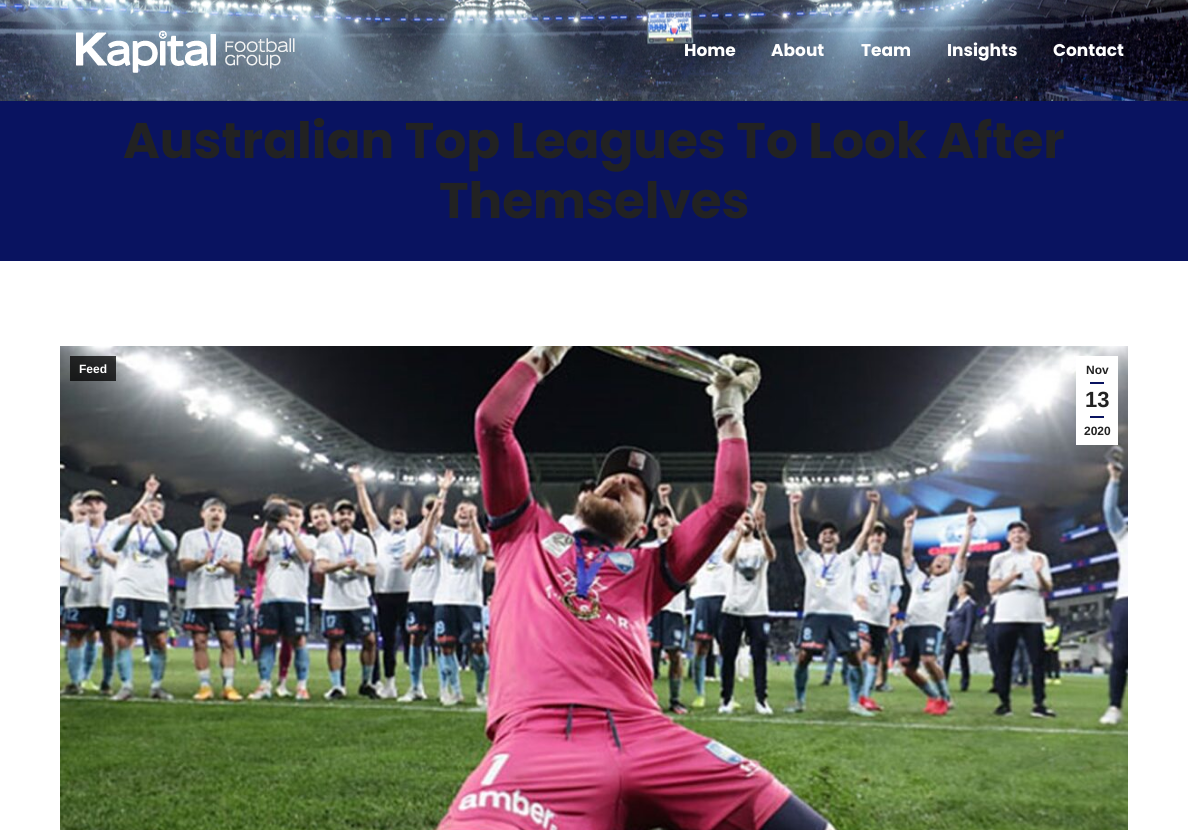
#include <cairo.h>
#include <math.h>
#include <stddef.h>


static void picture(cairo_t *cr, const char *path, double x, double y, double w, double h) {
    cairo_surface_t *image = cairo_image_surface_create_from_png(path);
    cairo_save(cr);
    cairo_set_source_surface(cr, image, x, y);
    cairo_rectangle(cr, x, y, w, h);
    cairo_fill(cr);
    cairo_restore(cr);
    cairo_surface_destroy(image);
}

int main(void) {
    cairo_surface_t *surface = cairo_image_surface_create(CAIRO_FORMAT_RGB24, 1188, 830);
    cairo_t *cr = cairo_create(surface);
    cairo_font_options_t *options = cairo_font_options_create();
    cairo_font_options_set_hint_metrics(options, CAIRO_HINT_METRICS_OFF);
    cairo_font_options_set_hint_style(options, CAIRO_HINT_STYLE_NONE);
    cairo_set_font_options(cr, options);
    cairo_set_miter_limit(cr, 4);
    cairo_set_source_rgb(cr, 1, 1, 1);
    cairo_paint(cr);
    picture(cr, "img1.png", 0, 0, 1188, 101);
    cairo_set_source_rgba(cr, 0.2, 0.2, 0.2, 0.11);
    cairo_rectangle(cr, 0, 100, 1188, 1);
    cairo_fill(cr);
    picture(cr, "img2.png", 76, 30, 219, 43);
    cairo_select_font_face(cr, "Poppins", CAIRO_FONT_SLANT_NORMAL, CAIRO_FONT_WEIGHT_BOLD);
    cairo_set_font_size(cr, 17);
    cairo_set_source_rgb(cr, 1, 1, 1);
    cairo_move_to(cr, 684, 56);
    cairo_show_text(cr, "Home");
    cairo_move_to(cr, 771, 56);
    cairo_show_text(cr, "About");
    cairo_move_to(cr, 861, 56);
    cairo_show_text(cr, "Team");
    cairo_move_to(cr, 947, 56);
    cairo_show_text(cr, "Insights");
    cairo_move_to(cr, 1053, 56);
    cairo_show_text(cr, "Contact");
    cairo_set_source_rgb(cr, 0.039, 0.075, 0.376);
    cairo_rectangle(cr, 0, 101, 1188, 160);
    cairo_fill(cr);
    cairo_set_font_size(cr, 50);
    cairo_set_source_rgb(cr, 0.133, 0.133, 0.133);
    cairo_move_to(cr, 123, 158);
    cairo_show_text(cr, "Australian Top Leagues To Look After");
    cairo_move_to(cr, 439, 218);
    cairo_show_text(cr, "Themselves");
    picture(cr, "img3.png", 60, 346, 1068, 484);
    cairo_set_source_rgba(cr, 0, 0, 0, 0.75);
    cairo_rectangle(cr, 70, 356, 46, 25);
    cairo_fill(cr);
    cairo_select_font_face(cr, "Liberation Sans", CAIRO_FONT_SLANT_NORMAL, CAIRO_FONT_WEIGHT_BOLD);
    cairo_set_font_size(cr, 12);
    cairo_set_source_rgb(cr, 1, 1, 1);
    cairo_move_to(cr, 79, 373);
    cairo_show_text(cr, "Feed");
    cairo_rectangle(cr, 1076, 356, 42, 89);
    cairo_fill(cr);
    cairo_set_source_rgb(cr, 0.133, 0.133, 0.133);
    cairo_move_to(cr, 1086, 374);
    cairo_show_text(cr, "Nov");
    cairo_set_source_rgb(cr, 0.039, 0.075, 0.376);
    cairo_rectangle(cr, 1090, 382, 14, 2);
    cairo_fill(cr);
    cairo_set_font_size(cr, 22);
    cairo_set_source_rgb(cr, 0.133, 0.133, 0.133);
    cairo_move_to(cr, 1085, 407);
    cairo_show_text(cr, "13");
    cairo_set_source_rgb(cr, 0.039, 0.075, 0.376);
    cairo_rectangle(cr, 1090, 416, 14, 2);
    cairo_fill(cr);
    cairo_set_font_size(cr, 12);
    cairo_set_source_rgb(cr, 0.133, 0.133, 0.133);
    cairo_move_to(cr, 1084, 435);
    cairo_show_text(cr, "2020");
    cairo_surface_write_to_png(surface, "page.png");
    cairo_font_options_destroy(options);
    cairo_destroy(cr);
    cairo_surface_destroy(surface);
    return 0;
}
